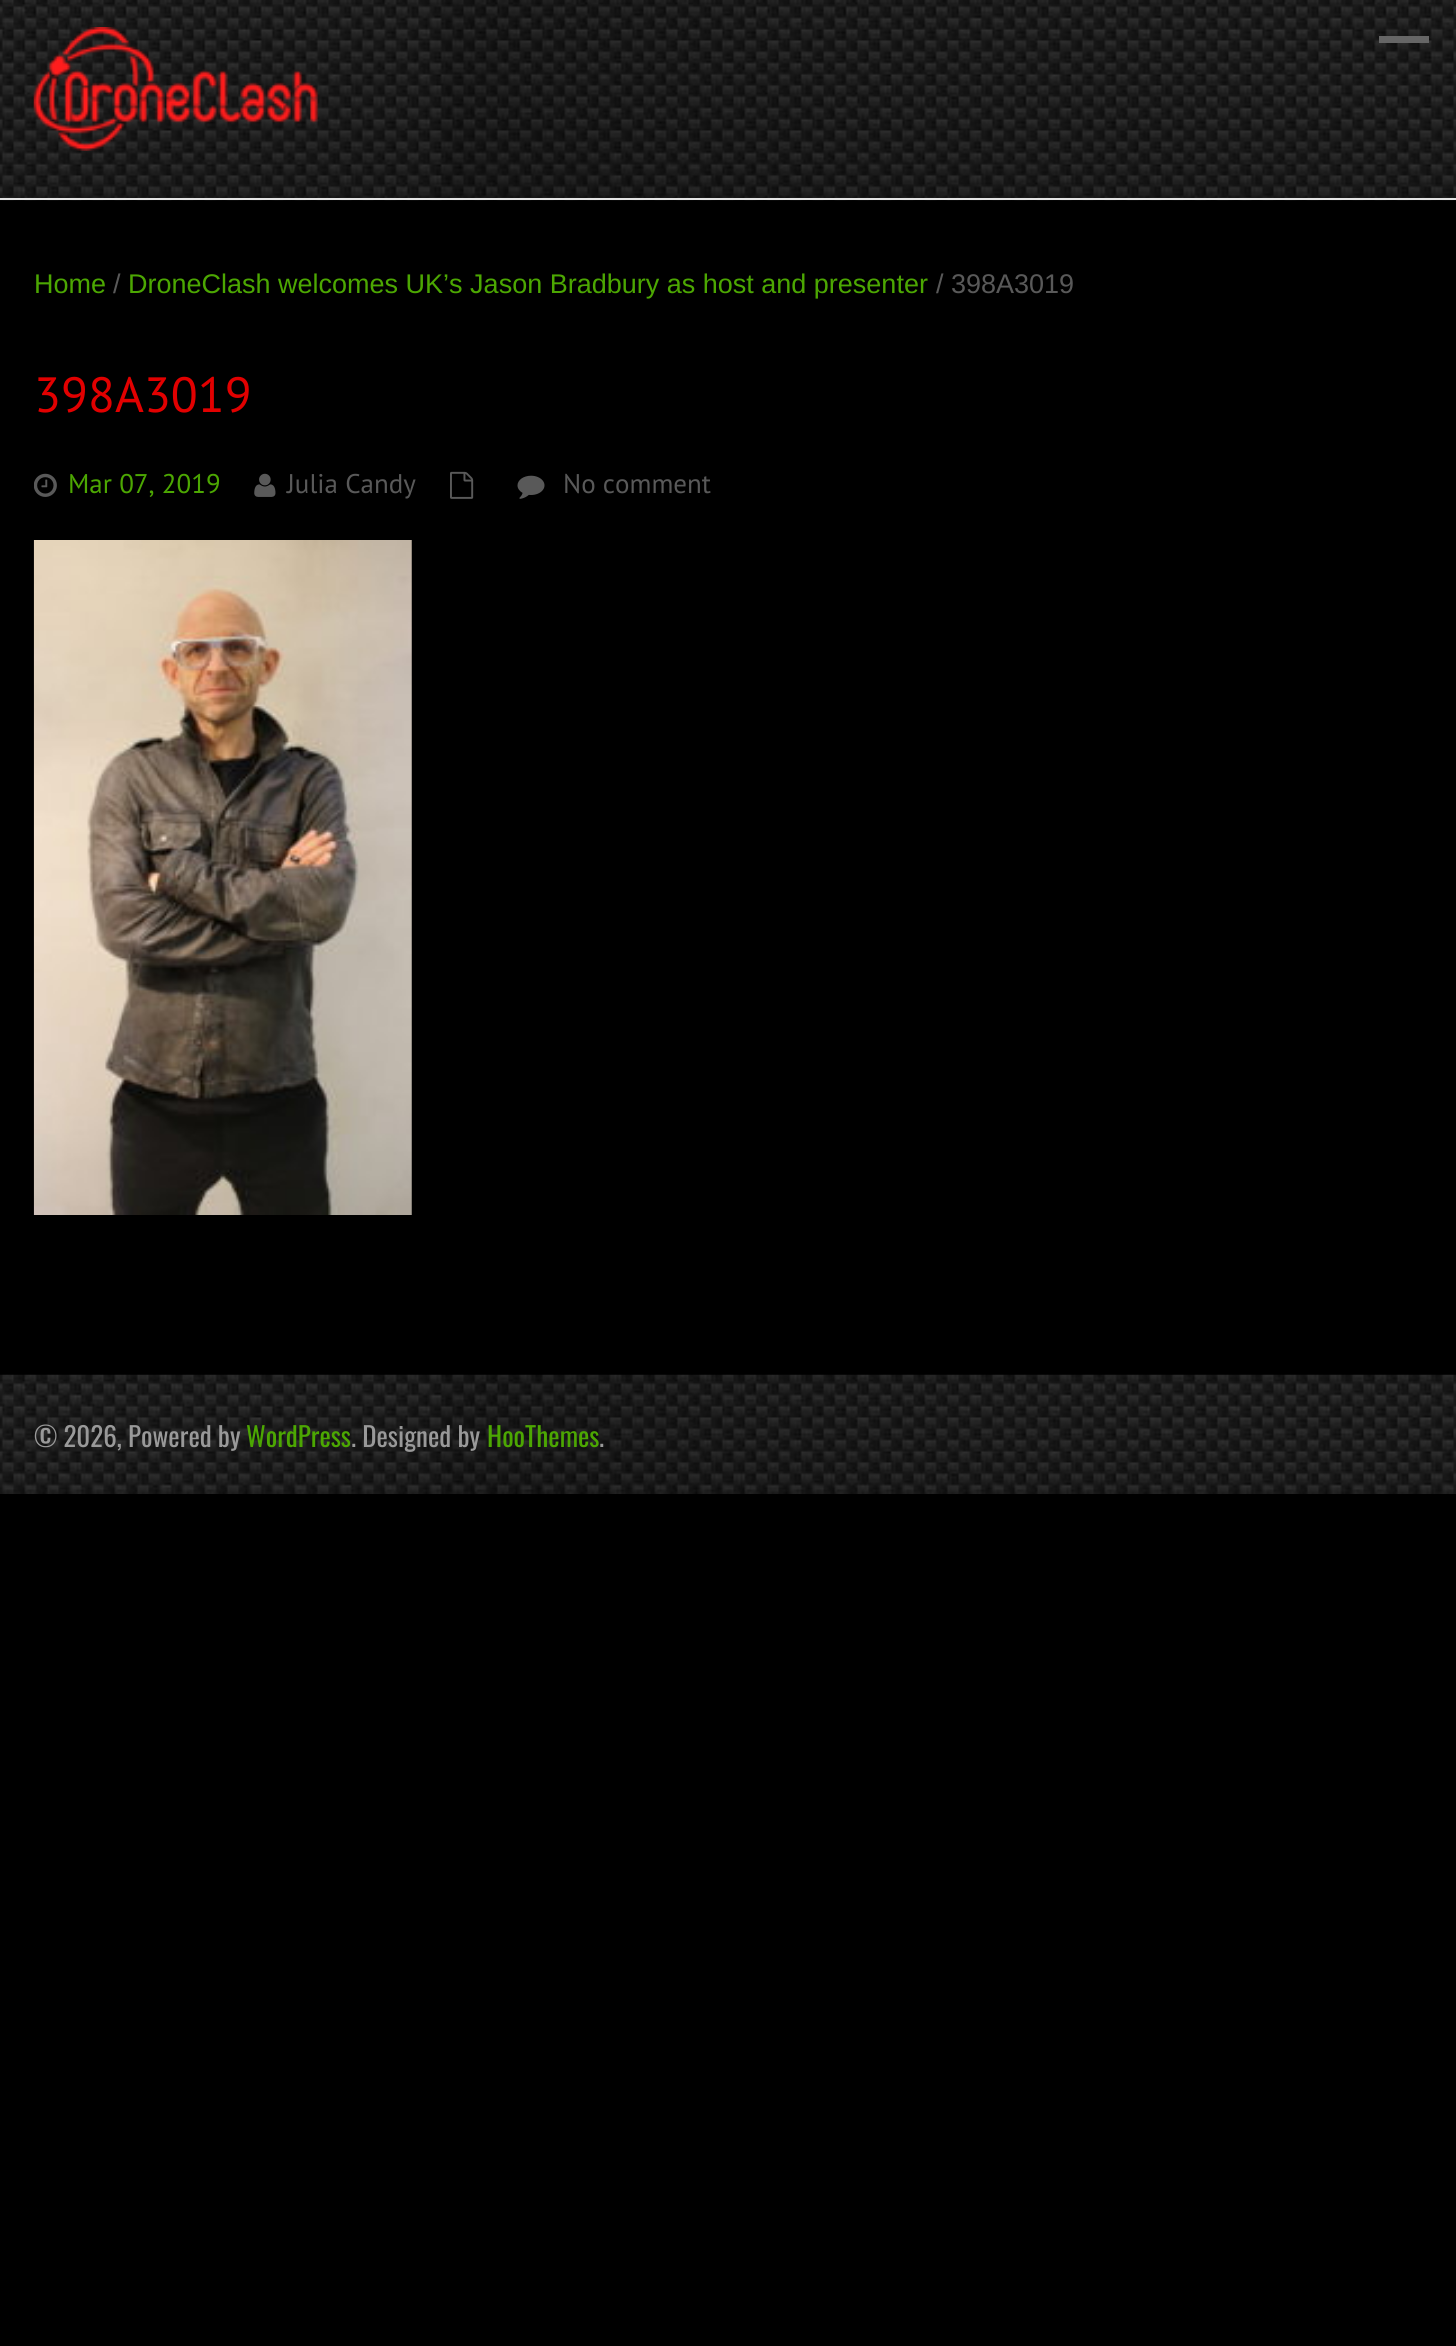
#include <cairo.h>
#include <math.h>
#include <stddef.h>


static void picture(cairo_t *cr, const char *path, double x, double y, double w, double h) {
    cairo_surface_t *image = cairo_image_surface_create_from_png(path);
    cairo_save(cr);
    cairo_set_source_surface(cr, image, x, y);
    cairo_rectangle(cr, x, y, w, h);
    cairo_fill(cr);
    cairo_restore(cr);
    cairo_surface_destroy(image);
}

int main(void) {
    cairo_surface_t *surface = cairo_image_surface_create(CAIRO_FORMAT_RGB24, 1456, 2346);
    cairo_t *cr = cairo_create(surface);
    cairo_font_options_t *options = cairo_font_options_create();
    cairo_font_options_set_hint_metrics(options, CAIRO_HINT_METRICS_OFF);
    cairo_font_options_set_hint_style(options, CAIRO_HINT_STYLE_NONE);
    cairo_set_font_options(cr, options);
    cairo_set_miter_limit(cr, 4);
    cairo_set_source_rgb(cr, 0, 0, 0);
    cairo_paint(cr);
    picture(cr, "img1.png", 0, 0, 1456, 201);
    cairo_set_source_rgb(cr, 0.89, 0.89, 0.89);
    cairo_rectangle(cr, 0, 198, 1456, 2);
    cairo_fill(cr);
    picture(cr, "img2.png", 33, 27, 286, 124);
    cairo_set_source_rgb(cr, 0.4, 0.4, 0.4);
    cairo_rectangle(cr, 1379, 36, 50, 7);
    cairo_fill(cr);
    cairo_select_font_face(cr, "Liberation Sans", CAIRO_FONT_SLANT_NORMAL, CAIRO_FONT_WEIGHT_NORMAL);
    cairo_set_font_size(cr, 27);
    cairo_set_source_rgb(cr, 0.298, 0.655, 0.008);
    cairo_move_to(cr, 34, 293);
    cairo_show_text(cr, "Home");
    cairo_set_source_rgb(cr, 0.349, 0.349, 0.349);
    cairo_move_to(cr, 113, 293);
    cairo_show_text(cr, "/");
    cairo_set_source_rgb(cr, 0.298, 0.655, 0.008);
    cairo_move_to(cr, 128, 293);
    cairo_show_text(cr, "DroneClash welcomes UK’s Jason Bradbury as host and presenter");
    cairo_set_source_rgb(cr, 0.349, 0.349, 0.349);
    cairo_move_to(cr, 936, 293);
    cairo_show_text(cr, "/ 398A3019");
    cairo_select_font_face(cr, "PT Sans", CAIRO_FONT_SLANT_NORMAL, CAIRO_FONT_WEIGHT_NORMAL);
    cairo_set_font_size(cr, 49.5);
    cairo_set_source_rgb(cr, 0.886, 0, 0);
    cairo_move_to(cr, 34, 412);
    cairo_show_text(cr, "398A3019");
    picture(cr, "img3.png", 34, 473, 23, 24);
    cairo_set_font_size(cr, 27);
    cairo_set_source_rgb(cr, 0.298, 0.655, 0.008);
    cairo_move_to(cr, 68, 493);
    cairo_show_text(cr, "Mar 07, 2019");
    picture(cr, "img4.png", 254, 473, 22, 24);
    cairo_set_source_rgb(cr, 0.349, 0.349, 0.349);
    cairo_move_to(cr, 287, 493);
    cairo_show_text(cr, "Julia Candy");
    picture(cr, "img5.png", 450, 471, 24, 28);
    picture(cr, "img6.png", 517, 475, 28, 24);
    cairo_move_to(cr, 563, 493);
    cairo_show_text(cr, "No comment");
    picture(cr, "img7.png", 33, 540, 379, 675);
    picture(cr, "img8.png", 0, 1374, 1456, 120);
    cairo_select_font_face(cr, "Oswald", CAIRO_FONT_SLANT_NORMAL, CAIRO_FONT_WEIGHT_NORMAL);
    cairo_set_source_rgb(cr, 0.6, 0.6, 0.6);
    cairo_move_to(cr, 34, 1447);
    cairo_show_text(cr, "© 2026, Powered by");
    cairo_set_source_rgb(cr, 0.298, 0.655, 0.008);
    cairo_move_to(cr, 246, 1447);
    cairo_show_text(cr, "WordPress");
    cairo_set_source_rgb(cr, 0.6, 0.6, 0.6);
    cairo_move_to(cr, 351, 1447);
    cairo_show_text(cr, ". Designed by");
    cairo_set_source_rgb(cr, 0.298, 0.655, 0.008);
    cairo_move_to(cr, 487, 1447);
    cairo_show_text(cr, "HooThemes");
    cairo_set_source_rgb(cr, 0.6, 0.6, 0.6);
    cairo_move_to(cr, 599, 1447);
    cairo_show_text(cr, ".");
    cairo_surface_write_to_png(surface, "page.png");
    cairo_font_options_destroy(options);
    cairo_destroy(cr);
    cairo_surface_destroy(surface);
    return 0;
}
